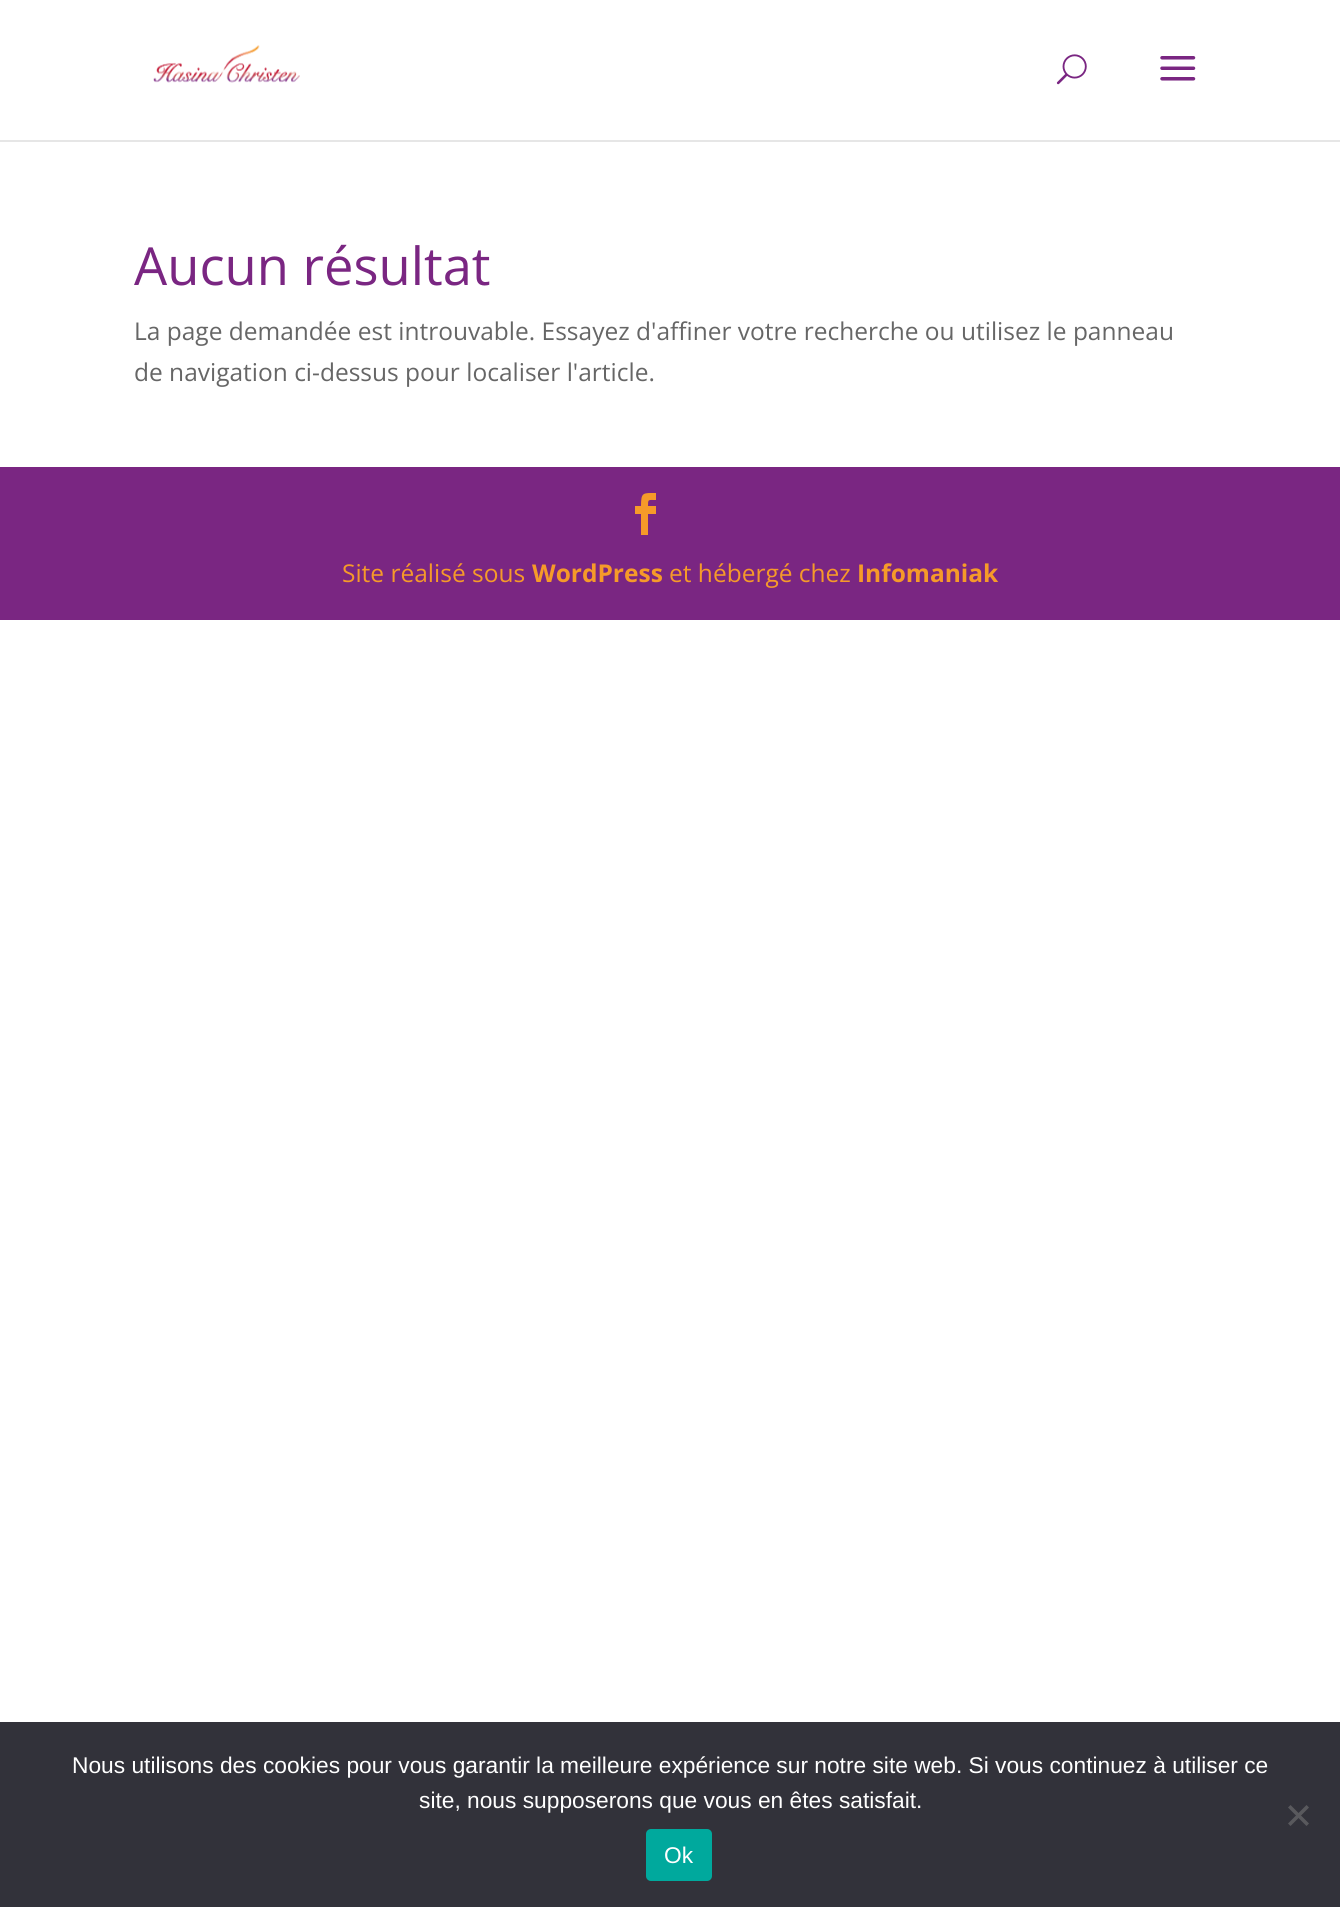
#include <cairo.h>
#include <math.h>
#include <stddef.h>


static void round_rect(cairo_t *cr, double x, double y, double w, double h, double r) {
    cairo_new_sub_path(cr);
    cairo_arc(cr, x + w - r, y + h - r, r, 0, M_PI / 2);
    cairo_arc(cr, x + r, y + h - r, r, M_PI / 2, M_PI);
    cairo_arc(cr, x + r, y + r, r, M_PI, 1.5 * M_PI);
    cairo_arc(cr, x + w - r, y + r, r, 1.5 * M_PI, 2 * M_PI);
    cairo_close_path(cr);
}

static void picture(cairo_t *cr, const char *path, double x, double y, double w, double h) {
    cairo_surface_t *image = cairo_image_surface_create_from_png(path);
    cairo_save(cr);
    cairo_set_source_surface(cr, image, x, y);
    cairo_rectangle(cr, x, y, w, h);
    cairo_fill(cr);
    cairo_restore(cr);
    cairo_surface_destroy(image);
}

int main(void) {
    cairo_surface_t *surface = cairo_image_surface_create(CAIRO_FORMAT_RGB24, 1340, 1907);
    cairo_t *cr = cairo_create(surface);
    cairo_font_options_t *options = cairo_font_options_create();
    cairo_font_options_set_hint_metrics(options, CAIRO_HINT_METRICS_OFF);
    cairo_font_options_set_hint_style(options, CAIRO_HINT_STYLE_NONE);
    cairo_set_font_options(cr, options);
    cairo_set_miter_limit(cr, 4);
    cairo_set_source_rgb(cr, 1, 1, 1);
    cairo_paint(cr);
    cairo_set_source_rgb(cr, 0.902, 0.902, 0.902);
    cairo_new_path(cr);
    cairo_move_to(cr, 0, 140);
    cairo_line_to(cr, 0, 142);
    cairo_line_to(cr, 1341, 142);
    cairo_line_to(cr, 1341, 2);
    cairo_line_to(cr, 1340, 2);
    cairo_line_to(cr, 1340, 140);
    cairo_close_path(cr);
    cairo_fill(cr);
    picture(cr, "img1.png", 153, 45, 147, 38);
    picture(cr, "img2.png", 1056, 54, 31, 31);
    picture(cr, "img3.png", 1160, 56, 36, 25);
    cairo_select_font_face(cr, "Open Sans", CAIRO_FONT_SLANT_NORMAL, CAIRO_FONT_WEIGHT_NORMAL);
    cairo_set_font_size(cr, 52.5);
    cairo_set_source_rgb(cr, 0.478, 0.149, 0.51);
    cairo_move_to(cr, 134, 285);
    cairo_show_text(cr, "Aucun résultat");
    cairo_set_font_size(cr, 24.5);
    cairo_set_source_rgb(cr, 0.4, 0.4, 0.4);
    cairo_move_to(cr, 134, 340);
    cairo_show_text(cr, "La page demandée est introuvable. Essayez d'affiner votre recherche ou utilisez le panneau");
    cairo_move_to(cr, 134, 381);
    cairo_show_text(cr, "de navigation ci-dessus pour localiser l'article.");
    cairo_set_source_rgb(cr, 0.478, 0.149, 0.51);
    cairo_rectangle(cr, 0, 467, 1340, 153);
    cairo_fill(cr);
    cairo_set_source_rgb(cr, 0.961, 0.604, 0.161);
    cairo_new_path(cr);
    cairo_move_to(cr, 641, 535);
    cairo_line_to(cr, 648, 535);
    cairo_line_to(cr, 648, 514);
    cairo_line_to(cr, 656, 514);
    cairo_line_to(cr, 656, 506);
    cairo_line_to(cr, 648, 506);
    cairo_curve_to(cr, 648, 499, 648, 500, 656, 500);
    cairo_line_to(cr, 656, 493);
    cairo_curve_to(cr, 643, 493, 641, 492, 641, 506);
    cairo_line_to(cr, 635, 506);
    cairo_line_to(cr, 635, 514);
    cairo_line_to(cr, 641, 514);
    cairo_close_path(cr);
    cairo_fill(cr);
    cairo_move_to(cr, 342, 582);
    cairo_show_text(cr, "Site réalisé sous");
    cairo_select_font_face(cr, "Open Sans", CAIRO_FONT_SLANT_NORMAL, CAIRO_FONT_WEIGHT_BOLD);
    cairo_move_to(cr, 532, 582);
    cairo_show_text(cr, "WordPress");
    cairo_select_font_face(cr, "Open Sans", CAIRO_FONT_SLANT_NORMAL, CAIRO_FONT_WEIGHT_NORMAL);
    cairo_move_to(cr, 669, 582);
    cairo_show_text(cr, "et hébergé chez");
    cairo_select_font_face(cr, "Open Sans", CAIRO_FONT_SLANT_NORMAL, CAIRO_FONT_WEIGHT_BOLD);
    cairo_move_to(cr, 857, 582);
    cairo_show_text(cr, "Infomaniak");
    cairo_set_source_rgb(cr, 0.196, 0.196, 0.227);
    cairo_rectangle(cr, 0, 1722, 1340, 185);
    cairo_fill(cr);
    cairo_select_font_face(cr, "Liberation Sans", CAIRO_FONT_SLANT_NORMAL, CAIRO_FONT_WEIGHT_NORMAL);
    cairo_set_font_size(cr, 22.75);
    cairo_set_source_rgb(cr, 1, 1, 1);
    cairo_move_to(cr, 72, 1773);
    cairo_show_text(cr, "Nous utilisons des cookies pour vous garantir la meilleure expérience sur notre site web. Si vous continuez à utiliser ce");
    cairo_move_to(cr, 419, 1808);
    cairo_show_text(cr, "site, nous supposerons que vous en êtes satisfait.");
    cairo_set_source_rgb(cr, 0.349, 0.349, 0.365);
    cairo_new_path(cr);
    cairo_move_to(cr, 1306.5, 1805);
    cairo_line_to(cr, 1309, 1807.5);
    cairo_line_to(cr, 1290.5, 1826);
    cairo_line_to(cr, 1288, 1823.5);
    cairo_close_path(cr);
    cairo_fill(cr);
    cairo_new_path(cr);
    cairo_move_to(cr, 1288, 1807.5);
    cairo_line_to(cr, 1290.5, 1805);
    cairo_line_to(cr, 1309, 1823.5);
    cairo_line_to(cr, 1306.5, 1826);
    cairo_close_path(cr);
    cairo_fill(cr);
    cairo_set_source_rgb(cr, 0, 0.663, 0.616);
    round_rect(cr, 646, 1829, 66, 52, 5);
    cairo_fill(cr);
    cairo_set_source_rgb(cr, 1, 1, 1);
    cairo_move_to(cr, 664, 1863);
    cairo_show_text(cr, "Ok");
    cairo_surface_write_to_png(surface, "page.png");
    cairo_font_options_destroy(options);
    cairo_destroy(cr);
    cairo_surface_destroy(surface);
    return 0;
}
